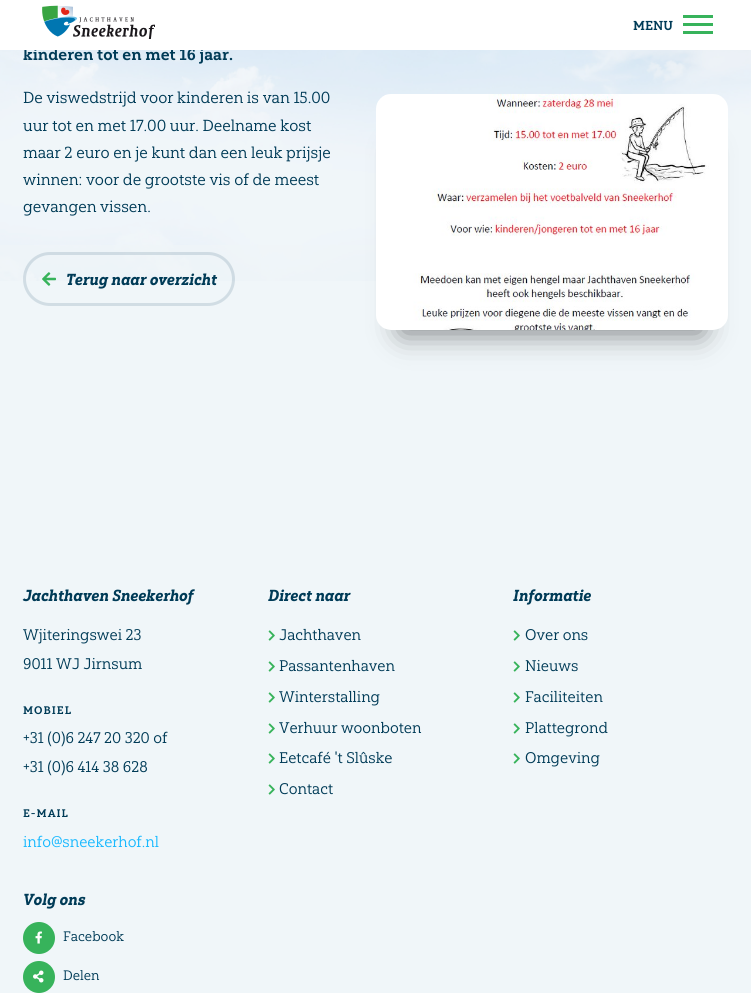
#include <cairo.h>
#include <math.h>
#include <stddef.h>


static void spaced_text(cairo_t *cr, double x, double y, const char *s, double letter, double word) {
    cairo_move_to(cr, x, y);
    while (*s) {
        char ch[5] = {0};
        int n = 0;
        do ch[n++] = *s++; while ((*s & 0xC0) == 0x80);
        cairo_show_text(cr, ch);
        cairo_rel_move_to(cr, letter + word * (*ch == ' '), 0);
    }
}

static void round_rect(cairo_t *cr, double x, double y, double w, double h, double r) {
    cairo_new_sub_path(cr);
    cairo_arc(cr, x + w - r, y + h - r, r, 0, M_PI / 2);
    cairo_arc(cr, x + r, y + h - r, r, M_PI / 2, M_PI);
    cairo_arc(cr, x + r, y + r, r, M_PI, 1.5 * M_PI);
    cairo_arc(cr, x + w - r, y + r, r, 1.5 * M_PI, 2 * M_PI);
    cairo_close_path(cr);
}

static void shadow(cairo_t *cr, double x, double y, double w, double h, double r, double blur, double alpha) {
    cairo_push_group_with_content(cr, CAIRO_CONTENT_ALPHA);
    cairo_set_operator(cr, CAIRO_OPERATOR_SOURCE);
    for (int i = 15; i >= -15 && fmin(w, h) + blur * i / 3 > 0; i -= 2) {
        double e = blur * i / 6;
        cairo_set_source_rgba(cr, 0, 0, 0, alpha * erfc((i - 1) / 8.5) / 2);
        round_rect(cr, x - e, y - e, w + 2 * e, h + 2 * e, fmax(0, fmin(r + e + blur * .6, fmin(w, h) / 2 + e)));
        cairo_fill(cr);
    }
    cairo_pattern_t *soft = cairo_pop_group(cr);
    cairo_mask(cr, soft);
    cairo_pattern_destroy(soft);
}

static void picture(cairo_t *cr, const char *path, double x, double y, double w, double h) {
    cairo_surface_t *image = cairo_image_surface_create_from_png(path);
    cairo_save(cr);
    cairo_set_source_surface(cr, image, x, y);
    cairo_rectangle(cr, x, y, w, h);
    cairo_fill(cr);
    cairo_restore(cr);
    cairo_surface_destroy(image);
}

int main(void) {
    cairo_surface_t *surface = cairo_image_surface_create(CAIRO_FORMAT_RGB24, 751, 993);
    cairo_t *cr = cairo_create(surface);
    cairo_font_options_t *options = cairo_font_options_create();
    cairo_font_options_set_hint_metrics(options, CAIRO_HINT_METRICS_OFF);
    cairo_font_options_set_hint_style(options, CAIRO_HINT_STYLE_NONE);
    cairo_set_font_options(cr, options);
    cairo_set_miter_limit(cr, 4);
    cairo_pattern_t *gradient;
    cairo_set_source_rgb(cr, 0.941, 0.961, 0.976);
    cairo_paint(cr);
    picture(cr, "img4.png", 0, 50, 751, 231);
    cairo_select_font_face(cr, "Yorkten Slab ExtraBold", CAIRO_FONT_SLANT_NORMAL, CAIRO_FONT_WEIGHT_NORMAL);
    cairo_set_font_size(cr, 16);
    cairo_set_source_rgb(cr, 0, 0.231, 0.341);
    cairo_move_to(cr, 23, 60);
    cairo_show_text(cr, "kinderen tot en met 16 jaar.");
    cairo_set_source_rgb(cr, 1, 1, 1);
    cairo_rectangle(cr, 0, 0, 751, 50);
    cairo_fill(cr);
    picture(cr, "img1.png", 42, 5, 113, 34);
    cairo_set_font_size(cr, 13);
    cairo_set_source_rgb(cr, 0, 0.231, 0.341);
    cairo_move_to(cr, 633, 30);
    cairo_show_text(cr, "MENU");
    cairo_set_source_rgb(cr, 0.216, 0.702, 0.357);
    cairo_rectangle(cr, 683, 23, 30, 3);
    cairo_fill(cr);
    cairo_rectangle(cr, 683, 15, 30, 3);
    cairo_fill(cr);
    cairo_rectangle(cr, 683, 31, 30, 3);
    cairo_fill(cr);
    cairo_select_font_face(cr, "Yorkten Slab Medium", CAIRO_FONT_SLANT_NORMAL, CAIRO_FONT_WEIGHT_NORMAL);
    cairo_set_font_size(cr, 16);
    cairo_set_source_rgb(cr, 0, 0.231, 0.341);
    cairo_move_to(cr, 23, 103);
    cairo_show_text(cr, "De viswedstrijd voor kinderen is van 15.00");
    cairo_move_to(cr, 23, 131);
    cairo_show_text(cr, "uur tot en met 17.00 uur. Deelname kost");
    cairo_move_to(cr, 23, 158);
    cairo_show_text(cr, "maar 2 euro en je kunt dan een leuk prijsje");
    cairo_move_to(cr, 23, 185);
    cairo_show_text(cr, "winnen: voor de grootste vis of de meest");
    cairo_move_to(cr, 23, 212);
    cairo_show_text(cr, "gevangen vissen.");
    gradient = cairo_pattern_create_linear(376, 81, 376, 281);
    cairo_pattern_add_color_stop_rgba(gradient, 0, 0.941, 0.961, 0.976, 0);
    cairo_pattern_add_color_stop_rgba(gradient, 0.8, 0.941, 0.961, 0.976, 0.7);
    cairo_set_source(cr, gradient);
    cairo_pattern_destroy(gradient);
    cairo_rectangle(cr, 0, 245, 580, 36);
    cairo_fill(cr);
    cairo_set_source_rgb(cr, 0, 0, 0);
    shadow(cr, 402, 149, 300, 184, 0, 15, 0.5);
    picture(cr, "img2.png", 376, 94, 352, 236);
    round_rect(cr, 24.5, 253.5, 209, 51, 25.5);
    cairo_set_source_rgba(cr, 0, 0.231, 0.341, 0.13);
    cairo_set_line_width(cr, 3);
    cairo_stroke(cr);
    picture(cr, "img3.png", 42, 272, 14, 14);
    cairo_select_font_face(cr, "Yorkten Slab Black", CAIRO_FONT_SLANT_ITALIC, CAIRO_FONT_WEIGHT_NORMAL);
    cairo_set_source_rgb(cr, 0, 0.231, 0.341);
    cairo_move_to(cr, 66, 285);
    cairo_show_text(cr, "Terug naar overzicht");
    cairo_move_to(cr, 23, 601);
    cairo_show_text(cr, "Jachthaven Sneekerhof");
    cairo_select_font_face(cr, "Yorkten Slab Medium", CAIRO_FONT_SLANT_NORMAL, CAIRO_FONT_WEIGHT_NORMAL);
    cairo_set_font_size(cr, 15.4);
    cairo_move_to(cr, 23, 640);
    cairo_show_text(cr, "Wjiteringswei 23");
    cairo_move_to(cr, 23, 669);
    cairo_show_text(cr, "9011 WJ Jirnsum");
    cairo_select_font_face(cr, "Yorkten Slab ExtraBold", CAIRO_FONT_SLANT_NORMAL, CAIRO_FONT_WEIGHT_NORMAL);
    cairo_set_font_size(cr, 11);
    spaced_text(cr, 23, 714, "MOBIEL", 1, 0);
    cairo_select_font_face(cr, "Yorkten Slab Medium", CAIRO_FONT_SLANT_NORMAL, CAIRO_FONT_WEIGHT_NORMAL);
    cairo_set_font_size(cr, 15.4);
    cairo_move_to(cr, 23, 743);
    cairo_show_text(cr, "+31 (0)6 247 20 320 of");
    cairo_move_to(cr, 23, 772);
    cairo_show_text(cr, "+31 (0)6 414 38 628");
    cairo_select_font_face(cr, "Yorkten Slab ExtraBold", CAIRO_FONT_SLANT_NORMAL, CAIRO_FONT_WEIGHT_NORMAL);
    cairo_set_font_size(cr, 11);
    spaced_text(cr, 23, 817, "E-MAIL", 1, 0);
    cairo_select_font_face(cr, "Yorkten Slab Medium", CAIRO_FONT_SLANT_NORMAL, CAIRO_FONT_WEIGHT_NORMAL);
    cairo_set_font_size(cr, 15.4);
    cairo_set_source_rgb(cr, 0.098, 0.725, 1);
    cairo_move_to(cr, 23, 847);
    cairo_show_text(cr, "info@sneekerhof.nl");
    cairo_select_font_face(cr, "Yorkten Slab Black", CAIRO_FONT_SLANT_ITALIC, CAIRO_FONT_WEIGHT_NORMAL);
    cairo_set_font_size(cr, 16);
    cairo_set_source_rgb(cr, 0, 0.231, 0.341);
    cairo_move_to(cr, 268, 601);
    cairo_show_text(cr, "Direct naar");
    picture(cr, "img5.png", 268, 630, 7, 11);
    cairo_select_font_face(cr, "Yorkten Slab Medium", CAIRO_FONT_SLANT_NORMAL, CAIRO_FONT_WEIGHT_NORMAL);
    cairo_set_font_size(cr, 15.4);
    cairo_move_to(cr, 279, 640);
    cairo_show_text(cr, "Jachthaven");
    picture(cr, "img5.png", 268, 661, 7, 11);
    cairo_move_to(cr, 279, 671);
    cairo_show_text(cr, "Passantenhaven");
    picture(cr, "img5.png", 268, 692, 7, 11);
    cairo_move_to(cr, 279, 702);
    cairo_show_text(cr, "Winterstalling");
    picture(cr, "img5.png", 268, 723, 7, 11);
    cairo_move_to(cr, 279, 733);
    cairo_show_text(cr, "Verhuur woonboten");
    picture(cr, "img5.png", 268, 753, 7, 11);
    cairo_move_to(cr, 279, 763);
    cairo_show_text(cr, "Eetcafé 't Slûske");
    picture(cr, "img5.png", 268, 784, 7, 11);
    cairo_move_to(cr, 279, 794);
    cairo_show_text(cr, "Contact");
    cairo_select_font_face(cr, "Yorkten Slab Black", CAIRO_FONT_SLANT_ITALIC, CAIRO_FONT_WEIGHT_NORMAL);
    cairo_set_font_size(cr, 16);
    cairo_move_to(cr, 513, 601);
    cairo_show_text(cr, "Informatie");
    picture(cr, "img5.png", 513, 630, 7, 11);
    cairo_select_font_face(cr, "Yorkten Slab Medium", CAIRO_FONT_SLANT_NORMAL, CAIRO_FONT_WEIGHT_NORMAL);
    cairo_set_font_size(cr, 15.4);
    cairo_move_to(cr, 525, 640);
    cairo_show_text(cr, "Over ons");
    picture(cr, "img5.png", 513, 661, 7, 11);
    cairo_move_to(cr, 525, 671);
    cairo_show_text(cr, "Nieuws");
    picture(cr, "img5.png", 513, 692, 7, 11);
    cairo_move_to(cr, 525, 702);
    cairo_show_text(cr, "Faciliteiten");
    picture(cr, "img5.png", 513, 723, 7, 11);
    cairo_move_to(cr, 525, 733);
    cairo_show_text(cr, "Plattegrond");
    picture(cr, "img5.png", 513, 753, 7, 11);
    cairo_move_to(cr, 525, 763);
    cairo_show_text(cr, "Omgeving");
    cairo_select_font_face(cr, "Yorkten Slab Black", CAIRO_FONT_SLANT_ITALIC, CAIRO_FONT_WEIGHT_NORMAL);
    cairo_set_font_size(cr, 16);
    cairo_move_to(cr, 23, 905);
    cairo_show_text(cr, "Volg ons");
    cairo_set_source_rgb(cr, 0.216, 0.702, 0.357);
    cairo_new_path(cr);
    cairo_arc(cr, 39, 938, 16, 0, 2 * M_PI);
    cairo_fill(cr);
    picture(cr, "img6.png", 35, 931, 7, 13);
    cairo_select_font_face(cr, "Yorkten Slab Medium", CAIRO_FONT_SLANT_NORMAL, CAIRO_FONT_WEIGHT_NORMAL);
    cairo_set_font_size(cr, 13.75);
    cairo_set_source_rgb(cr, 0, 0.231, 0.341);
    cairo_move_to(cr, 63, 941);
    cairo_show_text(cr, "Facebook");
    cairo_set_source_rgb(cr, 0.216, 0.702, 0.357);
    cairo_new_path(cr);
    cairo_arc(cr, 39, 977, 16, 0, 2 * M_PI);
    cairo_fill(cr);
    picture(cr, "img7.png", 33, 970, 11, 13);
    cairo_set_source_rgb(cr, 0, 0.231, 0.341);
    cairo_move_to(cr, 63, 980);
    cairo_show_text(cr, "Delen");
    cairo_surface_write_to_png(surface, "page.png");
    cairo_font_options_destroy(options);
    cairo_destroy(cr);
    cairo_surface_destroy(surface);
    return 0;
}
